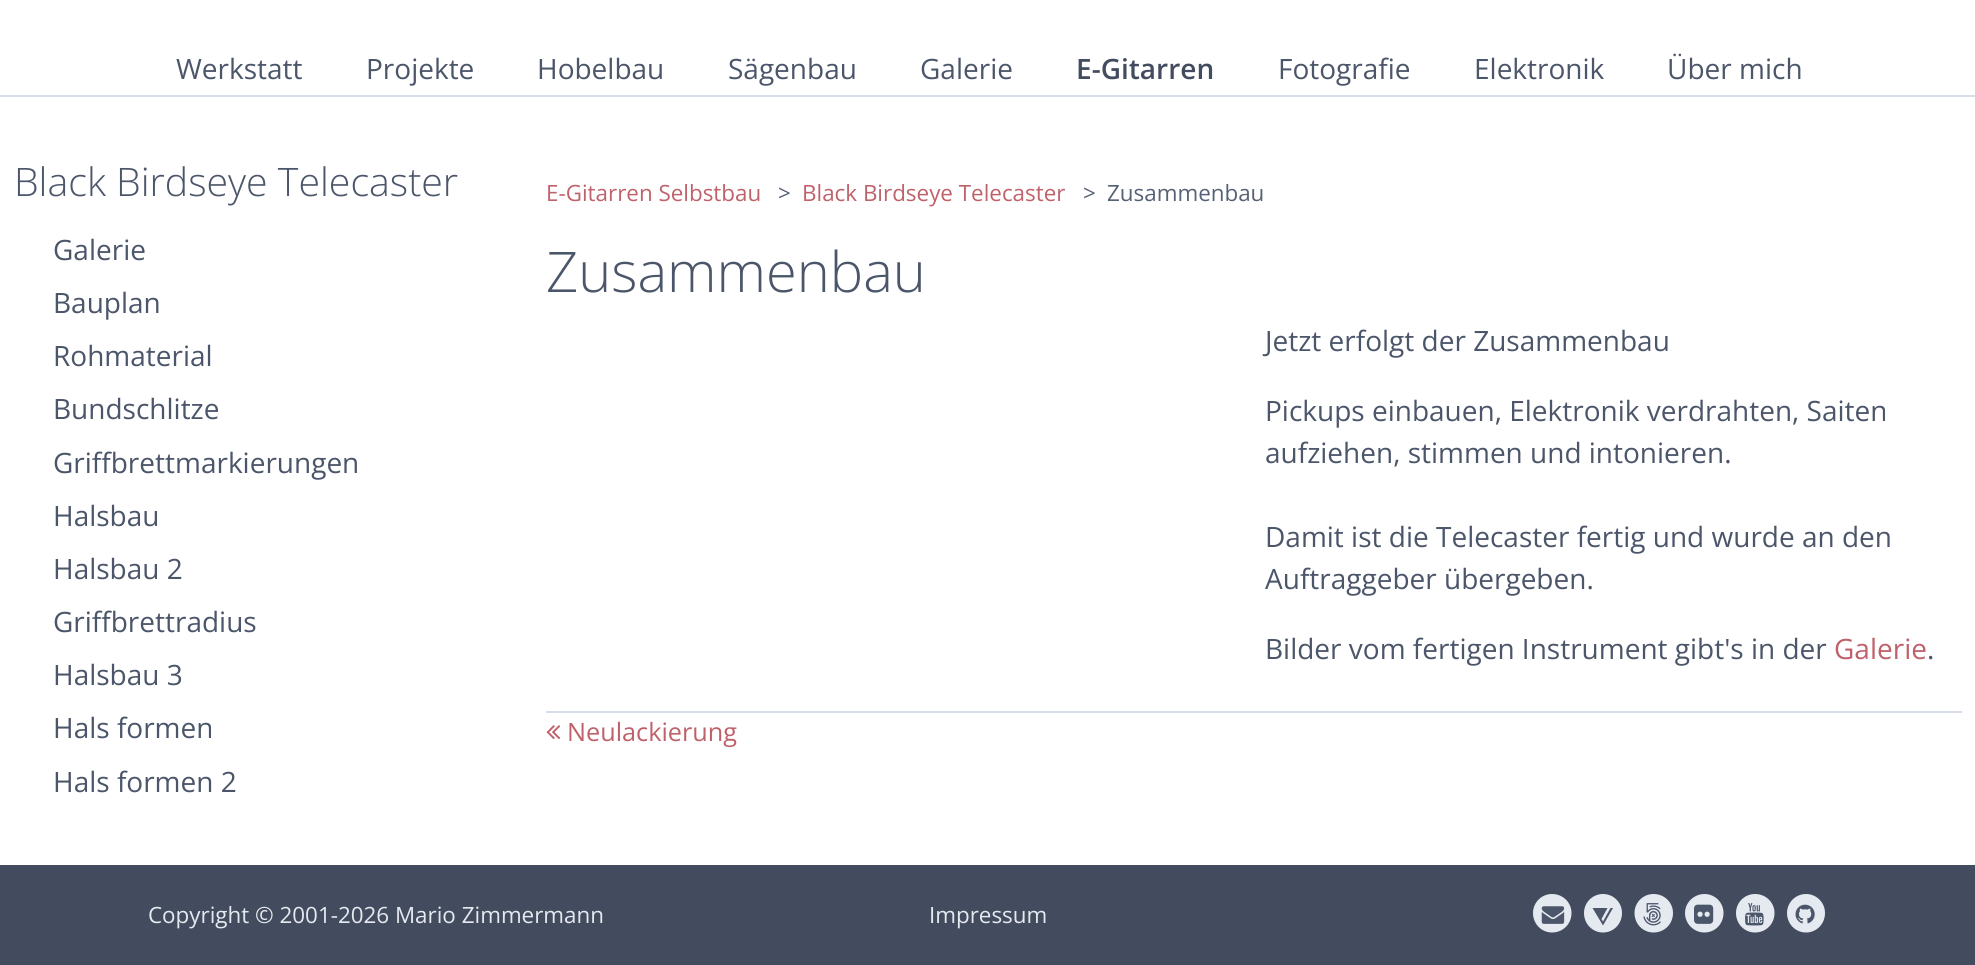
#include <cairo.h>
#include <math.h>
#include <stddef.h>


static void picture(cairo_t *cr, const char *path, double x, double y, double w, double h) {
    cairo_surface_t *image = cairo_image_surface_create_from_png(path);
    cairo_save(cr);
    cairo_set_source_surface(cr, image, x, y);
    cairo_rectangle(cr, x, y, w, h);
    cairo_fill(cr);
    cairo_restore(cr);
    cairo_surface_destroy(image);
}

int main(void) {
    cairo_surface_t *surface = cairo_image_surface_create(CAIRO_FORMAT_RGB24, 1975, 965);
    cairo_t *cr = cairo_create(surface);
    cairo_font_options_t *options = cairo_font_options_create();
    cairo_font_options_set_hint_metrics(options, CAIRO_HINT_METRICS_OFF);
    cairo_font_options_set_hint_style(options, CAIRO_HINT_STYLE_NONE);
    cairo_set_font_options(cr, options);
    cairo_set_miter_limit(cr, 4);
    cairo_set_source_rgb(cr, 1, 1, 1);
    cairo_paint(cr);
    cairo_set_source_rgb(cr, 0.847, 0.871, 0.914);
    cairo_rectangle(cr, 0, 95, 1975, 2);
    cairo_fill(cr);
    cairo_select_font_face(cr, "Open Sans", CAIRO_FONT_SLANT_NORMAL, CAIRO_FONT_WEIGHT_NORMAL);
    cairo_set_font_size(cr, 28);
    cairo_set_source_rgb(cr, 0.298, 0.337, 0.416);
    cairo_move_to(cr, 176, 79);
    cairo_show_text(cr, "Werkstatt");
    cairo_move_to(cr, 366, 79);
    cairo_show_text(cr, "Projekte");
    cairo_move_to(cr, 537, 79);
    cairo_show_text(cr, "Hobelbau");
    cairo_move_to(cr, 728, 79);
    cairo_show_text(cr, "Sägenbau");
    cairo_move_to(cr, 920, 79);
    cairo_show_text(cr, "Galerie");
    cairo_select_font_face(cr, "Open Sans SemiBold", CAIRO_FONT_SLANT_NORMAL, CAIRO_FONT_WEIGHT_NORMAL);
    cairo_set_source_rgb(cr, 0.263, 0.298, 0.369);
    cairo_move_to(cr, 1076, 79);
    cairo_show_text(cr, "E-Gitarren");
    cairo_select_font_face(cr, "Open Sans", CAIRO_FONT_SLANT_NORMAL, CAIRO_FONT_WEIGHT_NORMAL);
    cairo_set_source_rgb(cr, 0.298, 0.337, 0.416);
    cairo_move_to(cr, 1278, 79);
    cairo_show_text(cr, "Fotografie");
    cairo_move_to(cr, 1474, 79);
    cairo_show_text(cr, "Elektronik");
    cairo_move_to(cr, 1667, 79);
    cairo_show_text(cr, "Über mich");
    cairo_select_font_face(cr, "Open Sans Light", CAIRO_FONT_SLANT_NORMAL, CAIRO_FONT_WEIGHT_NORMAL);
    cairo_set_font_size(cr, 39.25);
    cairo_move_to(cr, 14, 196);
    cairo_show_text(cr, "Black Birdseye Telecaster");
    cairo_select_font_face(cr, "Open Sans", CAIRO_FONT_SLANT_NORMAL, CAIRO_FONT_WEIGHT_NORMAL);
    cairo_set_font_size(cr, 28);
    cairo_move_to(cr, 53, 260);
    cairo_show_text(cr, "Galerie");
    cairo_move_to(cr, 53, 313);
    cairo_show_text(cr, "Bauplan");
    cairo_move_to(cr, 53, 366);
    cairo_show_text(cr, "Rohmaterial");
    cairo_move_to(cr, 53, 419);
    cairo_show_text(cr, "Bundschlitze");
    cairo_move_to(cr, 53, 473);
    cairo_show_text(cr, "Griffbrettmarkierungen");
    cairo_move_to(cr, 53, 526);
    cairo_show_text(cr, "Halsbau");
    cairo_move_to(cr, 53, 579);
    cairo_show_text(cr, "Halsbau 2");
    cairo_move_to(cr, 53, 632);
    cairo_show_text(cr, "Griffbrettradius");
    cairo_move_to(cr, 53, 685);
    cairo_show_text(cr, "Halsbau 3");
    cairo_move_to(cr, 53, 738);
    cairo_show_text(cr, "Hals formen");
    cairo_move_to(cr, 53, 792);
    cairo_show_text(cr, "Hals formen 2");
    cairo_set_font_size(cr, 22.4);
    cairo_set_source_rgb(cr, 0.749, 0.38, 0.416);
    cairo_move_to(cr, 546, 201);
    cairo_show_text(cr, "E-Gitarren Selbstbau");
    cairo_set_source_rgb(cr, 0.337, 0.38, 0.463);
    cairo_move_to(cr, 778, 201);
    cairo_show_text(cr, ">");
    cairo_set_source_rgb(cr, 0.749, 0.38, 0.416);
    cairo_move_to(cr, 802, 201);
    cairo_show_text(cr, "Black Birdseye Telecaster");
    cairo_set_source_rgb(cr, 0.337, 0.38, 0.463);
    cairo_move_to(cr, 1083, 201);
    cairo_show_text(cr, ">");
    cairo_move_to(cr, 1107, 201);
    cairo_show_text(cr, "Zusammenbau");
    cairo_select_font_face(cr, "Open Sans Light", CAIRO_FONT_SLANT_NORMAL, CAIRO_FONT_WEIGHT_NORMAL);
    cairo_set_font_size(cr, 56);
    cairo_set_source_rgb(cr, 0.298, 0.337, 0.416);
    cairo_move_to(cr, 546, 292);
    cairo_show_text(cr, "Zusammenbau");
    cairo_select_font_face(cr, "Open Sans", CAIRO_FONT_SLANT_NORMAL, CAIRO_FONT_WEIGHT_NORMAL);
    cairo_set_font_size(cr, 28);
    cairo_move_to(cr, 1265, 351);
    cairo_show_text(cr, "Jetzt erfolgt der Zusammenbau");
    cairo_move_to(cr, 1265, 421);
    cairo_show_text(cr, "Pickups einbauen, Elektronik verdrahten, Saiten");
    cairo_move_to(cr, 1265, 463);
    cairo_show_text(cr, "aufziehen, stimmen und intonieren.");
    cairo_move_to(cr, 1265, 547);
    cairo_show_text(cr, "Damit ist die Telecaster fertig und wurde an den");
    cairo_move_to(cr, 1265, 589);
    cairo_show_text(cr, "Auftraggeber übergeben.");
    cairo_move_to(cr, 1265, 659);
    cairo_show_text(cr, "Bilder vom fertigen Instrument gibt's in der");
    cairo_set_source_rgb(cr, 0.749, 0.38, 0.416);
    cairo_move_to(cr, 1834, 659);
    cairo_show_text(cr, "Galerie");
    cairo_set_source_rgb(cr, 0.298, 0.337, 0.416);
    cairo_move_to(cr, 1927, 659);
    cairo_show_text(cr, ".");
    cairo_set_source_rgb(cr, 0.847, 0.871, 0.914);
    cairo_rectangle(cr, 546, 711, 1416, 2);
    cairo_fill(cr);
    picture(cr, "img1.png", 546, 725, 15, 15);
    cairo_set_font_size(cr, 25.25);
    cairo_set_source_rgb(cr, 0.749, 0.38, 0.416);
    cairo_move_to(cr, 567, 741);
    cairo_show_text(cr, "Neulackierung");
    cairo_set_source_rgb(cr, 0.263, 0.298, 0.369);
    cairo_rectangle(cr, 0, 865, 1975, 100);
    cairo_fill(cr);
    cairo_set_font_size(cr, 22.4);
    cairo_set_source_rgb(cr, 0.898, 0.914, 0.941);
    cairo_move_to(cr, 148, 923);
    cairo_show_text(cr, "Copyright © 2001-2026 Mario Zimmermann");
    cairo_move_to(cr, 929, 923);
    cairo_show_text(cr, "Impressum");
    cairo_new_path(cr);
    cairo_move_to(cr, 1571.5, 913);
    cairo_curve_to(cr, 1571.5, 902.5, 1563, 894, 1552, 894);
    cairo_curve_to(cr, 1541.5, 894, 1533, 902.5, 1533, 913);
    cairo_curve_to(cr, 1533, 924, 1541.5, 932.5, 1552, 932.5);
    cairo_curve_to(cr, 1563, 932.5, 1571.5, 924, 1571.5, 913);
    cairo_close_path(cr);
    cairo_fill(cr);
    picture(cr, "img2.png", 1541, 906, 24, 18);
    cairo_new_path(cr);
    cairo_move_to(cr, 1622, 913);
    cairo_curve_to(cr, 1622, 902.5, 1613.5, 894, 1603, 894);
    cairo_curve_to(cr, 1592.5, 894, 1584, 902.5, 1584, 913);
    cairo_curve_to(cr, 1584, 924, 1592.5, 932.5, 1603, 932.5);
    cairo_curve_to(cr, 1613.5, 932.5, 1622, 924, 1622, 913);
    cairo_close_path(cr);
    cairo_fill(cr);
    cairo_set_source_rgb(cr, 0.298, 0.337, 0.416);
    cairo_new_path(cr);
    cairo_move_to(cr, 1613, 908);
    cairo_line_to(cr, 1610.5, 908);
    cairo_line_to(cr, 1603, 921.5);
    cairo_line_to(cr, 1601.5, 919);
    cairo_line_to(cr, 1607.5, 908);
    cairo_line_to(cr, 1592.5, 908);
    cairo_line_to(cr, 1603, 925.5);
    cairo_close_path(cr);
    cairo_fill(cr);
    cairo_set_source_rgb(cr, 0.898, 0.914, 0.941);
    cairo_new_path(cr);
    cairo_move_to(cr, 1673, 913);
    cairo_curve_to(cr, 1673, 902.5, 1664.5, 894, 1653.5, 894);
    cairo_curve_to(cr, 1643, 894, 1634.5, 902.5, 1634.5, 913);
    cairo_curve_to(cr, 1634.5, 924, 1643, 932.5, 1653.5, 932.5);
    cairo_curve_to(cr, 1664.5, 932.5, 1673, 924, 1673, 913);
    cairo_close_path(cr);
    cairo_fill(cr);
    picture(cr, "img3.png", 1643, 903, 18, 23);
    cairo_new_path(cr);
    cairo_move_to(cr, 1723.5, 913);
    cairo_curve_to(cr, 1723.5, 902.5, 1715, 894, 1704.5, 894);
    cairo_curve_to(cr, 1694, 894, 1685, 902.5, 1685, 913);
    cairo_curve_to(cr, 1685, 924, 1694, 932.5, 1704.5, 932.5);
    cairo_curve_to(cr, 1715, 932.5, 1723.5, 924, 1723.5, 913);
    cairo_close_path(cr);
    cairo_fill(cr);
    picture(cr, "img4.png", 1694, 904, 20, 20);
    cairo_new_path(cr);
    cairo_move_to(cr, 1774.5, 913);
    cairo_curve_to(cr, 1774.5, 902.5, 1766, 894, 1755, 894);
    cairo_curve_to(cr, 1744.5, 894, 1736, 902.5, 1736, 913);
    cairo_curve_to(cr, 1736, 924, 1744.5, 932.5, 1755, 932.5);
    cairo_curve_to(cr, 1766, 932.5, 1774.5, 924, 1774.5, 913);
    cairo_close_path(cr);
    cairo_fill(cr);
    picture(cr, "img5.png", 1745, 903, 19, 23);
    cairo_new_path(cr);
    cairo_move_to(cr, 1825, 913);
    cairo_curve_to(cr, 1825, 902.5, 1816.5, 894, 1806, 894);
    cairo_curve_to(cr, 1795.5, 894, 1787, 902.5, 1787, 913);
    cairo_curve_to(cr, 1787, 924, 1795.5, 932.5, 1806, 932.5);
    cairo_curve_to(cr, 1816.5, 932.5, 1825, 924, 1825, 913);
    cairo_close_path(cr);
    cairo_fill(cr);
    picture(cr, "img6.png", 1795, 904, 20, 20);
    cairo_surface_write_to_png(surface, "page.png");
    cairo_font_options_destroy(options);
    cairo_destroy(cr);
    cairo_surface_destroy(surface);
    return 0;
}
